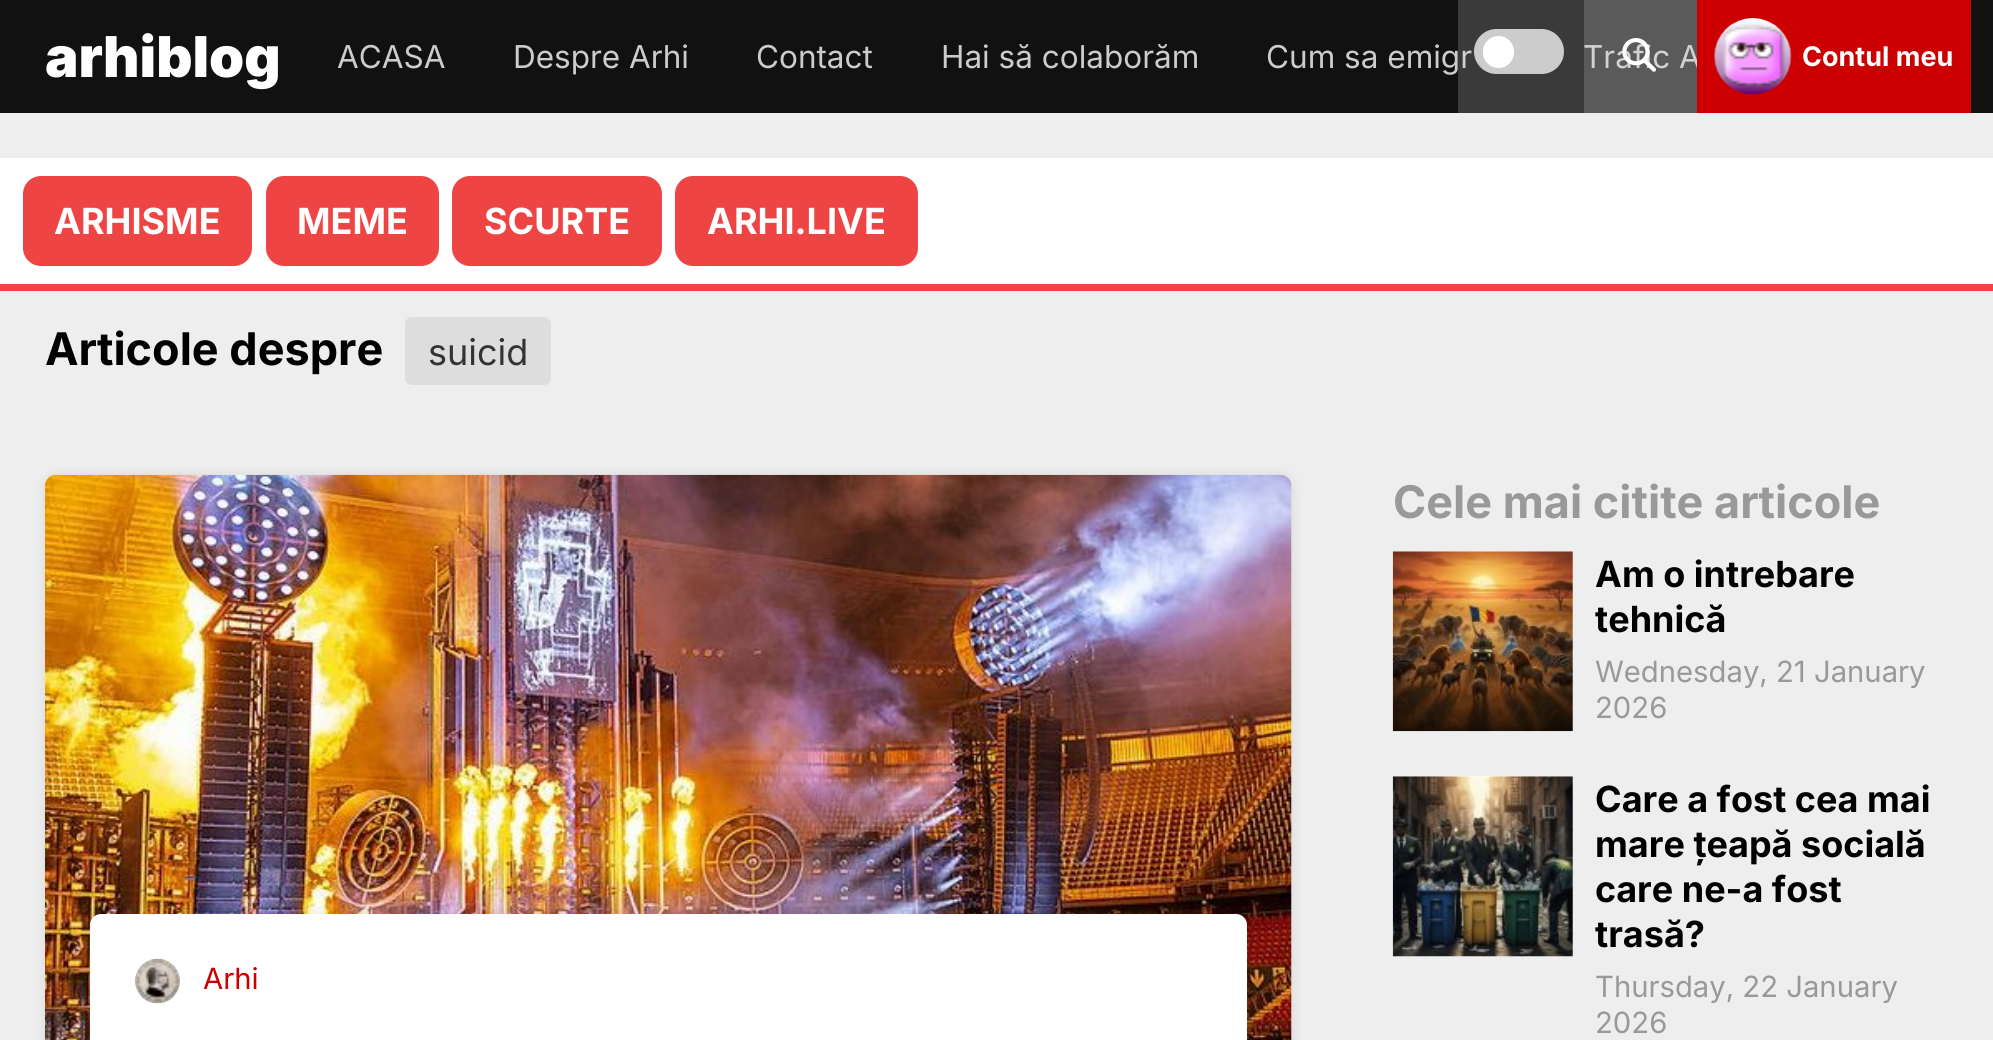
#include <cairo.h>
#include <math.h>
#include <stddef.h>


static void round_rect(cairo_t *cr, double x, double y, double w, double h, double r) {
    cairo_new_sub_path(cr);
    cairo_arc(cr, x + w - r, y + h - r, r, 0, M_PI / 2);
    cairo_arc(cr, x + r, y + h - r, r, M_PI / 2, M_PI);
    cairo_arc(cr, x + r, y + r, r, M_PI, 1.5 * M_PI);
    cairo_arc(cr, x + w - r, y + r, r, 1.5 * M_PI, 2 * M_PI);
    cairo_close_path(cr);
}

static void shadow(cairo_t *cr, double x, double y, double w, double h, double r, double blur, double alpha) {
    cairo_push_group_with_content(cr, CAIRO_CONTENT_ALPHA);
    cairo_set_operator(cr, CAIRO_OPERATOR_SOURCE);
    for (int i = 15; i >= -15 && fmin(w, h) + blur * i / 3 > 0; i -= 2) {
        double e = blur * i / 6;
        cairo_set_source_rgba(cr, 0, 0, 0, alpha * erfc((i - 1) / 8.5) / 2);
        round_rect(cr, x - e, y - e, w + 2 * e, h + 2 * e, fmax(0, fmin(r + e + blur * .6, fmin(w, h) / 2 + e)));
        cairo_fill(cr);
    }
    cairo_pattern_t *soft = cairo_pop_group(cr);
    cairo_mask(cr, soft);
    cairo_pattern_destroy(soft);
}

static void picture(cairo_t *cr, const char *path, double x, double y, double w, double h) {
    cairo_surface_t *image = cairo_image_surface_create_from_png(path);
    cairo_save(cr);
    cairo_set_source_surface(cr, image, x, y);
    cairo_rectangle(cr, x, y, w, h);
    cairo_fill(cr);
    cairo_restore(cr);
    cairo_surface_destroy(image);
}

int main(void) {
    cairo_surface_t *surface = cairo_image_surface_create(CAIRO_FORMAT_RGB24, 1993, 1040);
    cairo_t *cr = cairo_create(surface);
    cairo_font_options_t *options = cairo_font_options_create();
    cairo_font_options_set_hint_metrics(options, CAIRO_HINT_METRICS_OFF);
    cairo_font_options_set_hint_style(options, CAIRO_HINT_STYLE_NONE);
    cairo_set_font_options(cr, options);
    cairo_set_miter_limit(cr, 4);
    cairo_set_source_rgb(cr, 0.933, 0.933, 0.933);
    cairo_paint(cr);
    cairo_set_source_rgb(cr, 0.067, 0.067, 0.067);
    cairo_rectangle(cr, 0, 0, 1993, 113);
    cairo_fill(cr);
    cairo_select_font_face(cr, "Inter Black", CAIRO_FONT_SLANT_NORMAL, CAIRO_FONT_WEIGHT_NORMAL);
    cairo_set_font_size(cr, 56.25);
    cairo_set_source_rgb(cr, 1, 1, 1);
    cairo_move_to(cr, 45, 77);
    cairo_show_text(cr, "arhiblog");
    cairo_select_font_face(cr, "Inter", CAIRO_FONT_SLANT_NORMAL, CAIRO_FONT_WEIGHT_NORMAL);
    cairo_set_font_size(cr, 31.5);
    cairo_set_source_rgb(cr, 0.8, 0.8, 0.8);
    cairo_move_to(cr, 337, 68);
    cairo_show_text(cr, "ACASA");
    cairo_move_to(cr, 513, 68);
    cairo_show_text(cr, "Despre Arhi");
    cairo_move_to(cr, 756, 68);
    cairo_show_text(cr, "Contact");
    cairo_move_to(cr, 941, 68);
    cairo_show_text(cr, "Hai să colaborăm");
    cairo_move_to(cr, 1266, 68);
    cairo_show_text(cr, "Cum sa emigr");
    cairo_move_to(cr, 1583, 68);
    cairo_show_text(cr, "Trafic A");
    cairo_set_source_rgba(cr, 0.871, 0.871, 0.871, 0.2);
    cairo_rectangle(cr, 1458, 0, 239, 113);
    cairo_fill(cr);
    cairo_set_source_rgb(cr, 0.8, 0.8, 0.8);
    round_rect(cr, 1474, 29, 90, 45, 22.5);
    cairo_fill(cr);
    cairo_set_source_rgb(cr, 1, 1, 1);
    round_rect(cr, 1483, 36, 31, 32, 15.5);
    cairo_fill(cr);
    cairo_set_source_rgba(cr, 0.871, 0.871, 0.871, 0.2);
    cairo_rectangle(cr, 1584, 0, 113, 113);
    cairo_fill(cr);
    picture(cr, "img1.png", 1622, 38, 34, 34);
    cairo_set_source_rgb(cr, 0.8, 0, 0);
    cairo_rectangle(cr, 1697, 0, 274, 113);
    cairo_fill(cr);
    picture(cr, "img2.png", 1714, 18, 78, 77);
    cairo_select_font_face(cr, "Inter", CAIRO_FONT_SLANT_NORMAL, CAIRO_FONT_WEIGHT_BOLD);
    cairo_set_font_size(cr, 27);
    cairo_set_source_rgb(cr, 1, 1, 1);
    cairo_move_to(cr, 1802, 66);
    cairo_show_text(cr, "Contul meu");
    cairo_rectangle(cr, 0, 158, 1993, 126);
    cairo_fill(cr);
    cairo_set_source_rgb(cr, 0.937, 0.267, 0.267);
    cairo_rectangle(cr, 0, 284, 1993, 7);
    cairo_fill(cr);
    round_rect(cr, 23, 176, 229, 90, 18);
    cairo_fill(cr);
    cairo_set_font_size(cr, 36);
    cairo_set_source_rgb(cr, 1, 1, 1);
    cairo_move_to(cr, 54, 234);
    cairo_show_text(cr, "ARHISME");
    cairo_set_source_rgb(cr, 0.937, 0.267, 0.267);
    round_rect(cr, 266, 176, 173, 90, 18);
    cairo_fill(cr);
    cairo_set_source_rgb(cr, 1, 1, 1);
    cairo_move_to(cr, 297, 234);
    cairo_show_text(cr, "MEME");
    cairo_set_source_rgb(cr, 0.937, 0.267, 0.267);
    round_rect(cr, 452, 176, 210, 90, 18);
    cairo_fill(cr);
    cairo_set_source_rgb(cr, 1, 1, 1);
    cairo_move_to(cr, 484, 234);
    cairo_show_text(cr, "SCURTE");
    cairo_set_source_rgb(cr, 0.937, 0.267, 0.267);
    round_rect(cr, 675, 176, 243, 90, 18);
    cairo_fill(cr);
    cairo_set_source_rgb(cr, 1, 1, 1);
    cairo_move_to(cr, 707, 234);
    cairo_show_text(cr, "ARHI.LIVE");
    cairo_set_font_size(cr, 45);
    cairo_set_source_rgb(cr, 0, 0, 0);
    cairo_move_to(cr, 45, 365);
    cairo_show_text(cr, "Articole despre");
    cairo_set_source_rgb(cr, 0.867, 0.867, 0.867);
    round_rect(cr, 405, 317, 146, 68, 7);
    cairo_fill(cr);
    cairo_select_font_face(cr, "Inter", CAIRO_FONT_SLANT_NORMAL, CAIRO_FONT_WEIGHT_NORMAL);
    cairo_set_font_size(cr, 36);
    cairo_set_source_rgb(cr, 0.2, 0.2, 0.2);
    cairo_move_to(cr, 428, 365);
    cairo_show_text(cr, "suicid");
    cairo_set_source_rgb(cr, 0, 0, 0);
    shadow(cr, 45, 475, 1247, 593, 11, 5.5, 0.1);
    picture(cr, "img3.png", 45, 474, 1247, 566);
    shadow(cr, 90, 914, 1157, 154, 11, 5.5, 0.1);
    cairo_set_source_rgb(cr, 1, 1, 1);
    round_rect(cr, 90, 914, 1157, 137, 11);
    cairo_fill(cr);
    picture(cr, "img4.png", 135, 958, 45, 46);
    cairo_set_font_size(cr, 29.25);
    cairo_set_source_rgb(cr, 0.8, 0, 0);
    cairo_move_to(cr, 203, 989);
    cairo_show_text(cr, "Arhi");
    cairo_select_font_face(cr, "Inter", CAIRO_FONT_SLANT_NORMAL, CAIRO_FONT_WEIGHT_BOLD);
    cairo_set_font_size(cr, 45);
    cairo_set_source_rgb(cr, 0.6, 0.6, 0.6);
    cairo_move_to(cr, 1393, 518);
    cairo_show_text(cr, "Cele mai citite articole");
    cairo_set_source_rgb(cr, 1, 1, 1);
    cairo_rectangle(cr, 1393, 551, 180, 180);
    cairo_fill(cr);
    picture(cr, "img5.png", 1392, 551, 181, 181);
    cairo_set_font_size(cr, 36);
    cairo_set_source_rgb(cr, 0, 0, 0);
    cairo_move_to(cr, 1595, 587);
    cairo_show_text(cr, "Am o intrebare");
    cairo_move_to(cr, 1595, 632);
    cairo_show_text(cr, "tehnică");
    cairo_select_font_face(cr, "Inter", CAIRO_FONT_SLANT_NORMAL, CAIRO_FONT_WEIGHT_NORMAL);
    cairo_set_font_size(cr, 29.25);
    cairo_set_source_rgb(cr, 0.6, 0.6, 0.6);
    cairo_move_to(cr, 1595, 682);
    cairo_show_text(cr, "Wednesday, 21 January");
    cairo_move_to(cr, 1595, 718);
    cairo_show_text(cr, "2026");
    cairo_set_source_rgb(cr, 1, 1, 1);
    cairo_rectangle(cr, 1393, 776, 180, 180);
    cairo_fill(cr);
    picture(cr, "img6.png", 1392, 776, 181, 181);
    cairo_select_font_face(cr, "Inter", CAIRO_FONT_SLANT_NORMAL, CAIRO_FONT_WEIGHT_BOLD);
    cairo_set_font_size(cr, 36);
    cairo_set_source_rgb(cr, 0, 0, 0);
    cairo_move_to(cr, 1595, 812);
    cairo_show_text(cr, "Care a fost cea mai");
    cairo_move_to(cr, 1595, 857);
    cairo_show_text(cr, "mare țeapă socială");
    cairo_move_to(cr, 1595, 902);
    cairo_show_text(cr, "care ne-a fost");
    cairo_move_to(cr, 1595, 947);
    cairo_show_text(cr, "trasă?");
    cairo_select_font_face(cr, "Inter", CAIRO_FONT_SLANT_NORMAL, CAIRO_FONT_WEIGHT_NORMAL);
    cairo_set_font_size(cr, 29.25);
    cairo_set_source_rgb(cr, 0.6, 0.6, 0.6);
    cairo_move_to(cr, 1595, 997);
    cairo_show_text(cr, "Thursday, 22 January");
    cairo_move_to(cr, 1595, 1033);
    cairo_show_text(cr, "2026");
    cairo_surface_write_to_png(surface, "page.png");
    cairo_font_options_destroy(options);
    cairo_destroy(cr);
    cairo_surface_destroy(surface);
    return 0;
}
